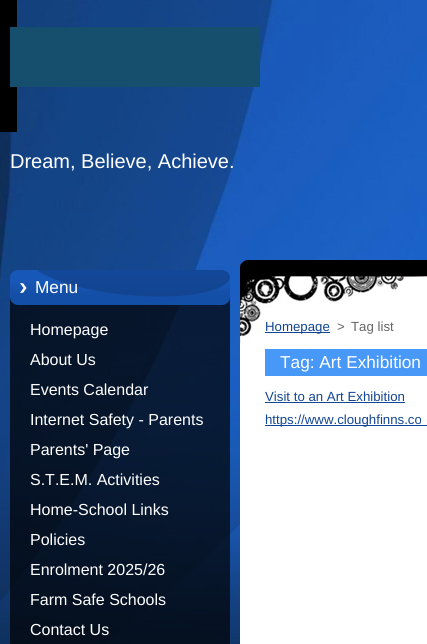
#include <cairo.h>
#include <math.h>
#include <stddef.h>


static void picture(cairo_t *cr, const char *path, double x, double y, double w, double h) {
    cairo_surface_t *image = cairo_image_surface_create_from_png(path);
    cairo_save(cr);
    cairo_set_source_surface(cr, image, x, y);
    cairo_rectangle(cr, x, y, w, h);
    cairo_fill(cr);
    cairo_restore(cr);
    cairo_surface_destroy(image);
}

int main(void) {
    cairo_surface_t *surface = cairo_image_surface_create(CAIRO_FORMAT_RGB24, 427, 644);
    cairo_t *cr = cairo_create(surface);
    cairo_font_options_t *options = cairo_font_options_create();
    cairo_font_options_set_hint_metrics(options, CAIRO_HINT_METRICS_OFF);
    cairo_font_options_set_hint_style(options, CAIRO_HINT_STYLE_NONE);
    cairo_set_font_options(cr, options);
    cairo_set_miter_limit(cr, 4);
    cairo_set_source_rgb(cr, 1, 1, 1);
    cairo_paint(cr);
    picture(cr, "img1.png", 0, 0, 427, 644);
    cairo_set_source_rgb(cr, 0, 0, 0);
    cairo_rectangle(cr, 0, 0, 17, 132);
    cairo_fill(cr);
    cairo_set_source_rgb(cr, 1, 1, 1);
    cairo_rectangle(cr, 240, 265, 187, 379);
    cairo_fill(cr);
    cairo_set_source_rgb(cr, 0.086, 0.306, 0.431);
    cairo_rectangle(cr, 10, 27, 250, 60);
    cairo_fill(cr);
    picture(cr, "img2.png", 240, 260, 187, 10);
    cairo_select_font_face(cr, "Liberation Sans", CAIRO_FONT_SLANT_NORMAL, CAIRO_FONT_WEIGHT_NORMAL);
    cairo_set_font_size(cr, 20);
    cairo_set_source_rgb(cr, 1, 1, 1);
    cairo_move_to(cr, 10, 168);
    cairo_show_text(cr, "Dream, Believe, Achieve.");
    picture(cr, "img3.png", 10, 270, 220, 35);
    cairo_set_font_size(cr, 17.25);
    cairo_move_to(cr, 35, 293);
    cairo_show_text(cr, "Menu");
    cairo_set_source_rgba(cr, 0, 0, 0, 0.7);
    cairo_rectangle(cr, 10, 305, 220, 339);
    cairo_fill(cr);
    cairo_set_font_size(cr, 16);
    cairo_set_source_rgb(cr, 1, 1, 1);
    cairo_move_to(cr, 30, 335);
    cairo_show_text(cr, "Homepage");
    cairo_move_to(cr, 30, 365);
    cairo_show_text(cr, "About Us");
    cairo_move_to(cr, 30, 395);
    cairo_show_text(cr, "Events Calendar");
    cairo_move_to(cr, 30, 425);
    cairo_show_text(cr, "Internet Safety - Parents");
    cairo_move_to(cr, 30, 455);
    cairo_show_text(cr, "Parents' Page");
    cairo_move_to(cr, 30, 485);
    cairo_show_text(cr, "S.T.E.M. Activities");
    cairo_move_to(cr, 30, 515);
    cairo_show_text(cr, "Home-School Links");
    cairo_move_to(cr, 30, 545);
    cairo_show_text(cr, "Policies");
    cairo_move_to(cr, 30, 575);
    cairo_show_text(cr, "Enrolment 2025/26");
    cairo_move_to(cr, 30, 605);
    cairo_show_text(cr, "Farm Safe Schools");
    cairo_move_to(cr, 30, 635);
    cairo_show_text(cr, "Contact Us");
    picture(cr, "img4.png", 240, 270, 187, 76);
    cairo_set_source_rgb(cr, 0.071, 0.271, 0.576);
    cairo_rectangle(cr, 265, 332, 65, 1);
    cairo_fill(cr);
    cairo_set_font_size(cr, 13.25);
    cairo_move_to(cr, 265, 331);
    cairo_show_text(cr, "Homepage");
    cairo_set_source_rgb(cr, 0.4, 0.4, 0.4);
    cairo_move_to(cr, 337, 331);
    cairo_show_text(cr, ">");
    cairo_move_to(cr, 351, 331);
    cairo_show_text(cr, "Tag list");
    cairo_set_source_rgb(cr, 0.282, 0.596, 0.969);
    cairo_rectangle(cr, 265, 349, 162, 27);
    cairo_fill(cr);
    cairo_set_font_size(cr, 17.25);
    cairo_set_source_rgb(cr, 1, 1, 1);
    cairo_move_to(cr, 280, 368);
    cairo_show_text(cr, "Tag: Art Exhibition");
    cairo_set_font_size(cr, 13.25);
    cairo_set_source_rgb(cr, 0.071, 0.271, 0.576);
    cairo_move_to(cr, 265, 401);
    cairo_show_text(cr, "Visit to an Art Exhibition");
    cairo_rectangle(cr, 265, 402, 140, 1);
    cairo_fill(cr);
    cairo_rectangle(cr, 265, 425, 162, 1);
    cairo_fill(cr);
    cairo_move_to(cr, 265, 424);
    cairo_show_text(cr, "https://www.cloughfinns.co");
    cairo_surface_write_to_png(surface, "page.png");
    cairo_font_options_destroy(options);
    cairo_destroy(cr);
    cairo_surface_destroy(surface);
    return 0;
}
